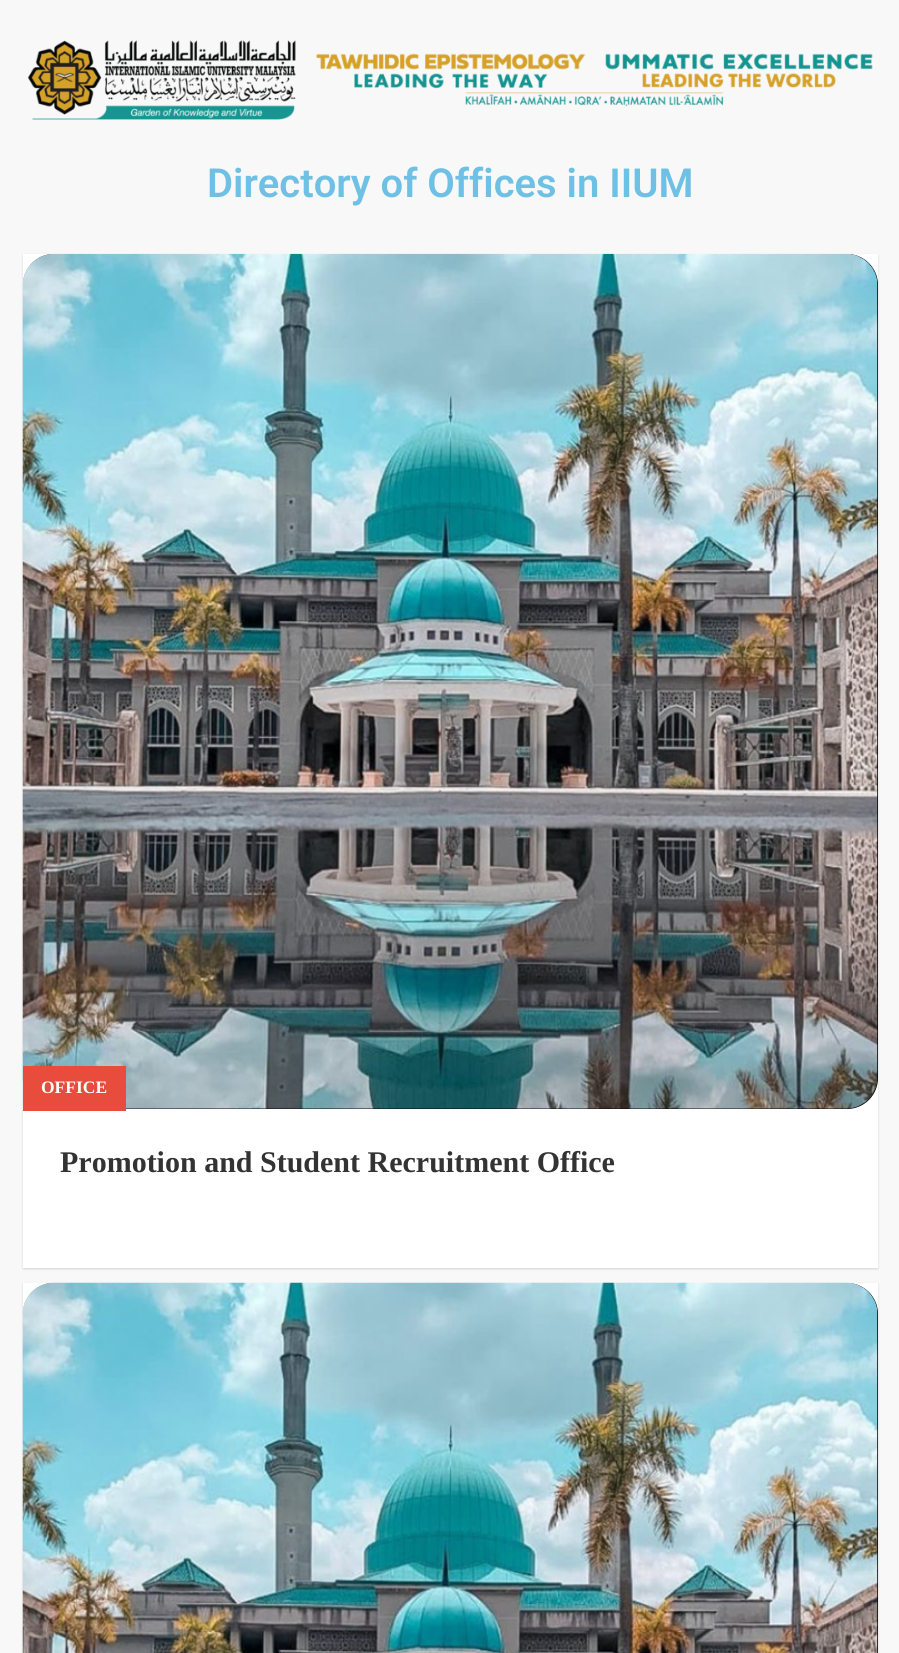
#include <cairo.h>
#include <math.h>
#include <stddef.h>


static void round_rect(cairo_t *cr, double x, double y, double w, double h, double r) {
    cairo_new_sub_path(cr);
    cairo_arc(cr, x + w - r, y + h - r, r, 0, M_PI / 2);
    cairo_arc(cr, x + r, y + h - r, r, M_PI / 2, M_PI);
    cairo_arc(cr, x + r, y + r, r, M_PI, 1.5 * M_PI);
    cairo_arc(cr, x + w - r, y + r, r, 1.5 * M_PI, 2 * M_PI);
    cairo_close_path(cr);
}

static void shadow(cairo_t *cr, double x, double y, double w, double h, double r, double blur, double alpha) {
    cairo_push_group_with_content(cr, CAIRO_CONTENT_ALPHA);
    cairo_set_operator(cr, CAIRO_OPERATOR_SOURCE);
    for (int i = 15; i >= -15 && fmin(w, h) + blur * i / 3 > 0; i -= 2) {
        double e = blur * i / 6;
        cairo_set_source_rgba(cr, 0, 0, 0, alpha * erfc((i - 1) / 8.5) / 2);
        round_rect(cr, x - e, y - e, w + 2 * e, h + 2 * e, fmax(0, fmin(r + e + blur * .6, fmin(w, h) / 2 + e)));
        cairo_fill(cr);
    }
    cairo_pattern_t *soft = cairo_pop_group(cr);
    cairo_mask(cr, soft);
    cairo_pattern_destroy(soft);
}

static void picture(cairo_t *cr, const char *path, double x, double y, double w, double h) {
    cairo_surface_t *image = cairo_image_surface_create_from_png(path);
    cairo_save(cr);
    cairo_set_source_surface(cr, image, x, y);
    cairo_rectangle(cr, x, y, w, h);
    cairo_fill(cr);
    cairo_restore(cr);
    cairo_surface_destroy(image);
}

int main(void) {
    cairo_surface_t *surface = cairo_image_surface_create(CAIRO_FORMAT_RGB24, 899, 1653);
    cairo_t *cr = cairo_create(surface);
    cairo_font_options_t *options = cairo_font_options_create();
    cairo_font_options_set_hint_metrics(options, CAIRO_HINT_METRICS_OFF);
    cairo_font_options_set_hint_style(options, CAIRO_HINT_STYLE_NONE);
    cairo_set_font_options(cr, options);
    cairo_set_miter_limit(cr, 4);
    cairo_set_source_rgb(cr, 0.969, 0.969, 0.969);
    cairo_paint(cr);
    picture(cr, "img1.png", 27, 40, 846, 80);
    cairo_select_font_face(cr, "Roboto SemiBold", CAIRO_FONT_SLANT_NORMAL, CAIRO_FONT_WEIGHT_NORMAL);
    cairo_set_font_size(cr, 40);
    cairo_set_source_rgb(cr, 0.431, 0.757, 0.894);
    cairo_move_to(cr, 207, 197);
    cairo_show_text(cr, "Directory of Offices in IIUM");
    cairo_set_source_rgb(cr, 0, 0, 0);
    shadow(cr, 23, 255, 855, 1014, 0, 1, 0.15);
    cairo_set_source_rgb(cr, 1, 1, 1);
    cairo_rectangle(cr, 23, 254, 855, 1014);
    cairo_fill(cr);
    cairo_set_source_rgb(cr, 0, 0, 0);
    round_rect(cr, 23, 254, 855, 855, 31);
    cairo_fill(cr);
    picture(cr, "img2.png", 22, 253, 856, 856);
    cairo_set_source_rgb(cr, 0.906, 0.298, 0.235);
    cairo_rectangle(cr, 23, 1066, 103, 45);
    cairo_fill(cr);
    cairo_select_font_face(cr, "Liberation Serif", CAIRO_FONT_SLANT_NORMAL, CAIRO_FONT_WEIGHT_BOLD);
    cairo_set_font_size(cr, 17.5);
    cairo_set_source_rgb(cr, 1, 1, 1);
    cairo_move_to(cr, 41, 1093);
    cairo_show_text(cr, "OFFICE");
    cairo_set_font_size(cr, 30);
    cairo_set_source_rgb(cr, 0.2, 0.2, 0.2);
    cairo_move_to(cr, 60, 1172);
    cairo_show_text(cr, "Promotion and Student Recruitment Office");
    cairo_set_source_rgb(cr, 0, 0, 0);
    shadow(cr, 23, 1284, 855, 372, 0, 1, 0.15);
    cairo_set_source_rgb(cr, 1, 1, 1);
    cairo_rectangle(cr, 23, 1283, 855, 31);
    cairo_fill(cr);
    cairo_set_source_rgb(cr, 0, 0, 0);
    round_rect(cr, 23, 1283, 855, 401, 31);
    cairo_fill(cr);
    picture(cr, "img3.png", 22, 1282, 856, 371);
    cairo_surface_write_to_png(surface, "page.png");
    cairo_font_options_destroy(options);
    cairo_destroy(cr);
    cairo_surface_destroy(surface);
    return 0;
}
